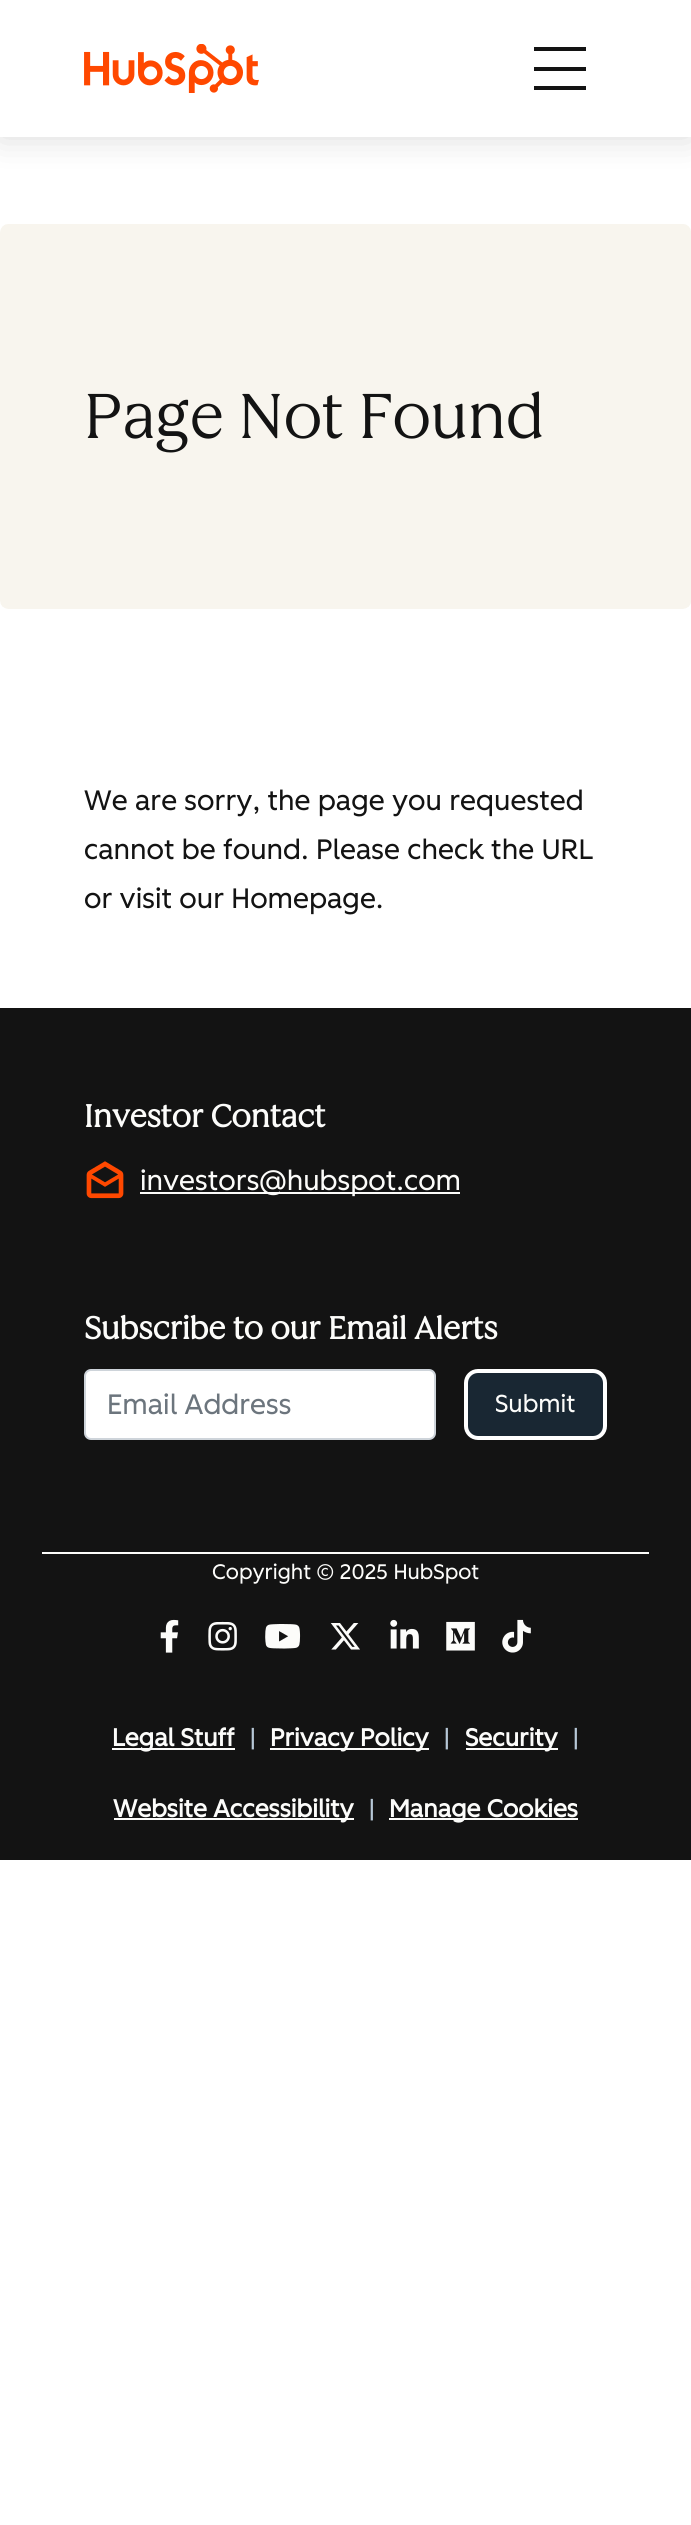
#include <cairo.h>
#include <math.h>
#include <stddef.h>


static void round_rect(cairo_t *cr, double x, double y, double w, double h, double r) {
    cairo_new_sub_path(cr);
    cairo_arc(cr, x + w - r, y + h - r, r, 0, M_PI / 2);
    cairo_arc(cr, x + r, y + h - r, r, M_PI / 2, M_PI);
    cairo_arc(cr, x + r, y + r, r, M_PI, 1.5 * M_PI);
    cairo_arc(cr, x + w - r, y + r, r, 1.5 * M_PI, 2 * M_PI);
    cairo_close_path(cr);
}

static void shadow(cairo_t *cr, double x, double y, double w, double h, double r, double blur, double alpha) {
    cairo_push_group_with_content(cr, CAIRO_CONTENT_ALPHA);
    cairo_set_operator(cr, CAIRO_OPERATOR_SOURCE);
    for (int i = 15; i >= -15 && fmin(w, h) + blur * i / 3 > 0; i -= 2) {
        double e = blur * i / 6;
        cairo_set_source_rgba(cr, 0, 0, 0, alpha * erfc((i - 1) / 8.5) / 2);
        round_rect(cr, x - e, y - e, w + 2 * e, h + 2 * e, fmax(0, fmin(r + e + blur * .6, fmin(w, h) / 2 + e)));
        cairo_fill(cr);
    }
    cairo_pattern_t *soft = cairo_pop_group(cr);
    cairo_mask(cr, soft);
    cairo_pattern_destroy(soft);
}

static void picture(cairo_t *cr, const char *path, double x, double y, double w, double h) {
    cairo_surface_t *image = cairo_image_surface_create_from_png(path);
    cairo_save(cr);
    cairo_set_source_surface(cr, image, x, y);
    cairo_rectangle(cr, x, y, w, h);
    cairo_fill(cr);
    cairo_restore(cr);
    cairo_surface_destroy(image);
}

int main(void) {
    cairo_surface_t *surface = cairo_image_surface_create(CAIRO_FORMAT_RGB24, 691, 2525);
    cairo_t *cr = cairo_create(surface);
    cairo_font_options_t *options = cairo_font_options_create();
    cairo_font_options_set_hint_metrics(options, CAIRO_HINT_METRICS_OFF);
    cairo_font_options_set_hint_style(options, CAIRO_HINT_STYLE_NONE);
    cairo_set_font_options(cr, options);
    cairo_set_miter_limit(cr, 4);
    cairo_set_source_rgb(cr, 1, 1, 1);
    cairo_paint(cr);
    cairo_set_source_rgb(cr, 0, 0, 0);
    shadow(cr, 0, 0, 691, 137, 0, 17.5, 0.15);
    cairo_set_source_rgb(cr, 1, 1, 1);
    cairo_rectangle(cr, 0, 0, 691, 137);
    cairo_fill(cr);
    picture(cr, "img1.png", 84, 44, 175, 49);
    cairo_set_source_rgb(cr, 0.078, 0.078, 0.078);
    cairo_rectangle(cr, 534, 47, 52, 4);
    cairo_fill(cr);
    cairo_rectangle(cr, 534, 67, 52, 4);
    cairo_fill(cr);
    cairo_rectangle(cr, 534, 86, 52, 4);
    cairo_fill(cr);
    picture(cr, "img2.png", 0, 224, 691, 385);
    cairo_select_font_face(cr, "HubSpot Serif", CAIRO_FONT_SLANT_NORMAL, CAIRO_FONT_WEIGHT_NORMAL);
    cairo_set_font_size(cr, 63);
    cairo_move_to(cr, 84, 438);
    cairo_show_text(cr, "Page Not Found");
    cairo_select_font_face(cr, "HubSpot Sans", CAIRO_FONT_SLANT_NORMAL, CAIRO_FONT_WEIGHT_NORMAL);
    cairo_set_font_size(cr, 28);
    cairo_move_to(cr, 84, 810);
    cairo_show_text(cr, "We are sorry, the page you requested");
    cairo_move_to(cr, 84, 859);
    cairo_show_text(cr, "cannot be found. Please check the URL");
    cairo_move_to(cr, 84, 908);
    cairo_show_text(cr, "or visit our Homepage.");
    cairo_rectangle(cr, 0, 1008, 691, 852);
    cairo_fill(cr);
    cairo_select_font_face(cr, "HubSpot Serif", CAIRO_FONT_SLANT_NORMAL, CAIRO_FONT_WEIGHT_BOLD);
    cairo_set_font_size(cr, 31.5);
    cairo_set_source_rgb(cr, 0.988, 0.988, 0.98);
    cairo_move_to(cr, 84, 1127);
    cairo_show_text(cr, "Investor Contact");
    picture(cr, "img3.png", 86, 1161, 38, 38);
    cairo_rectangle(cr, 140, 1192, 320, 2);
    cairo_fill(cr);
    cairo_select_font_face(cr, "HubSpot Sans", CAIRO_FONT_SLANT_NORMAL, CAIRO_FONT_WEIGHT_NORMAL);
    cairo_set_font_size(cr, 28);
    cairo_move_to(cr, 140, 1190);
    cairo_show_text(cr, "investors@hubspot.com");
    cairo_select_font_face(cr, "HubSpot Serif", CAIRO_FONT_SLANT_NORMAL, CAIRO_FONT_WEIGHT_BOLD);
    cairo_set_font_size(cr, 31.5);
    cairo_move_to(cr, 84, 1339);
    cairo_show_text(cr, "Subscribe to our Email Alerts");
    cairo_set_source_rgb(cr, 1, 1, 1);
    round_rect(cr, 85, 1370, 350, 69, 6);
    cairo_fill_preserve(cr);
    cairo_set_source_rgb(cr, 0.808, 0.831, 0.855);
    cairo_stroke(cr);
    cairo_select_font_face(cr, "HubSpot Sans", CAIRO_FONT_SLANT_NORMAL, CAIRO_FONT_WEIGHT_NORMAL);
    cairo_set_font_size(cr, 28);
    cairo_set_source_rgb(cr, 0.424, 0.459, 0.49);
    cairo_move_to(cr, 107, 1414);
    cairo_show_text(cr, "Email Address");
    cairo_set_source_rgb(cr, 0.098, 0.153, 0.2);
    round_rect(cr, 466, 1371, 139, 67, 12);
    cairo_fill_preserve(cr);
    cairo_set_source_rgb(cr, 1, 1, 1);
    cairo_set_line_width(cr, 4);
    cairo_stroke(cr);
    cairo_set_font_size(cr, 24.5);
    cairo_set_source_rgb(cr, 0.988, 0.988, 0.98);
    cairo_move_to(cr, 495, 1412);
    cairo_show_text(cr, "Submit");
    cairo_rectangle(cr, 42, 1552, 607, 2);
    cairo_fill(cr);
    cairo_set_font_size(cr, 21);
    cairo_move_to(cr, 212, 1579);
    cairo_show_text(cr, "Copyright © 2025 HubSpot");
    picture(cr, "img4.png", 160, 1619, 19, 34);
    picture(cr, "img5.png", 208, 1621, 29, 30);
    picture(cr, "img6.png", 265, 1624, 36, 25);
    picture(cr, "img7.png", 330, 1623, 30, 27);
    picture(cr, "img8.png", 390, 1619, 29, 30);
    picture(cr, "img9.png", 446, 1621, 29, 30);
    picture(cr, "img10.png", 502, 1619, 29, 34);
    cairo_rectangle(cr, 112, 1748, 123, 2);
    cairo_fill(cr);
    cairo_select_font_face(cr, "HubSpot Sans", CAIRO_FONT_SLANT_NORMAL, CAIRO_FONT_WEIGHT_BOLD);
    cairo_set_font_size(cr, 24.5);
    cairo_move_to(cr, 112, 1746);
    cairo_show_text(cr, "Legal Stuff");
    cairo_select_font_face(cr, "HubSpot Sans", CAIRO_FONT_SLANT_NORMAL, CAIRO_FONT_WEIGHT_NORMAL);
    cairo_set_source_rgb(cr, 0.714, 0.78, 0.839);
    cairo_move_to(cr, 249, 1746);
    cairo_show_text(cr, "|");
    cairo_set_source_rgb(cr, 0.988, 0.988, 0.98);
    cairo_rectangle(cr, 270, 1748, 159, 2);
    cairo_fill(cr);
    cairo_select_font_face(cr, "HubSpot Sans", CAIRO_FONT_SLANT_NORMAL, CAIRO_FONT_WEIGHT_BOLD);
    cairo_move_to(cr, 270, 1746);
    cairo_show_text(cr, "Privacy Policy");
    cairo_select_font_face(cr, "HubSpot Sans", CAIRO_FONT_SLANT_NORMAL, CAIRO_FONT_WEIGHT_NORMAL);
    cairo_set_source_rgb(cr, 0.714, 0.78, 0.839);
    cairo_move_to(cr, 443, 1746);
    cairo_show_text(cr, "|");
    cairo_set_source_rgb(cr, 0.988, 0.988, 0.98);
    cairo_rectangle(cr, 466, 1748, 92, 2);
    cairo_fill(cr);
    cairo_select_font_face(cr, "HubSpot Sans", CAIRO_FONT_SLANT_NORMAL, CAIRO_FONT_WEIGHT_BOLD);
    cairo_move_to(cr, 465, 1746);
    cairo_show_text(cr, "Security");
    cairo_select_font_face(cr, "HubSpot Sans", CAIRO_FONT_SLANT_NORMAL, CAIRO_FONT_WEIGHT_NORMAL);
    cairo_set_source_rgb(cr, 0.714, 0.78, 0.839);
    cairo_move_to(cr, 572, 1746);
    cairo_show_text(cr, "|");
    cairo_set_source_rgb(cr, 0.988, 0.988, 0.98);
    cairo_rectangle(cr, 114, 1818, 240, 2);
    cairo_fill(cr);
    cairo_select_font_face(cr, "HubSpot Sans", CAIRO_FONT_SLANT_NORMAL, CAIRO_FONT_WEIGHT_BOLD);
    cairo_move_to(cr, 113, 1817);
    cairo_show_text(cr, "Website Accessibility");
    cairo_select_font_face(cr, "HubSpot Sans", CAIRO_FONT_SLANT_NORMAL, CAIRO_FONT_WEIGHT_NORMAL);
    cairo_set_source_rgb(cr, 0.714, 0.78, 0.839);
    cairo_move_to(cr, 368, 1817);
    cairo_show_text(cr, "|");
    cairo_set_source_rgb(cr, 0.988, 0.988, 0.98);
    cairo_rectangle(cr, 389, 1818, 189, 2);
    cairo_fill(cr);
    cairo_select_font_face(cr, "HubSpot Sans", CAIRO_FONT_SLANT_NORMAL, CAIRO_FONT_WEIGHT_BOLD);
    cairo_move_to(cr, 389, 1817);
    cairo_show_text(cr, "Manage Cookies");
    cairo_surface_write_to_png(surface, "page.png");
    cairo_font_options_destroy(options);
    cairo_destroy(cr);
    cairo_surface_destroy(surface);
    return 0;
}
